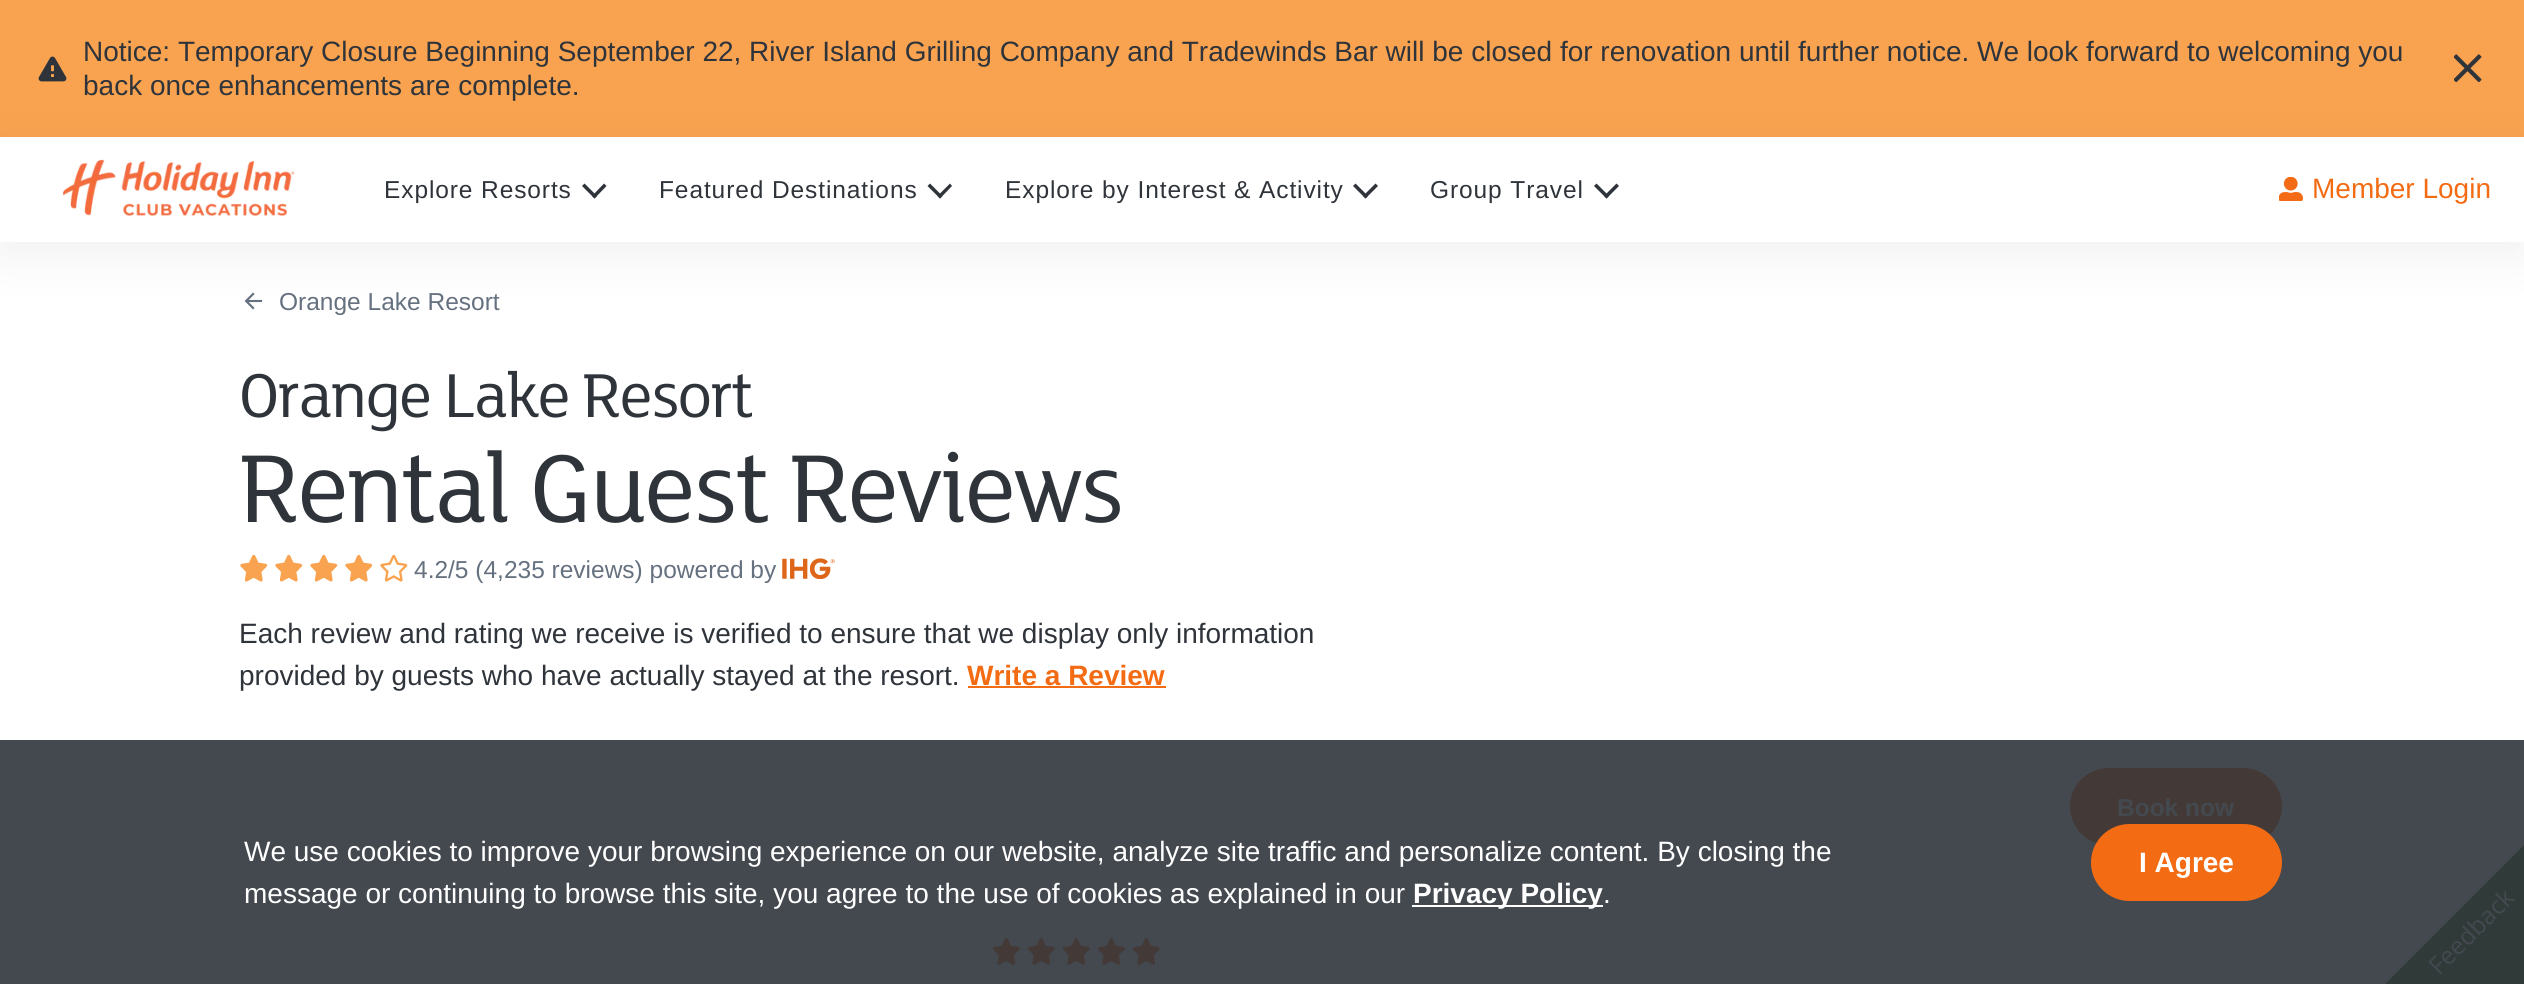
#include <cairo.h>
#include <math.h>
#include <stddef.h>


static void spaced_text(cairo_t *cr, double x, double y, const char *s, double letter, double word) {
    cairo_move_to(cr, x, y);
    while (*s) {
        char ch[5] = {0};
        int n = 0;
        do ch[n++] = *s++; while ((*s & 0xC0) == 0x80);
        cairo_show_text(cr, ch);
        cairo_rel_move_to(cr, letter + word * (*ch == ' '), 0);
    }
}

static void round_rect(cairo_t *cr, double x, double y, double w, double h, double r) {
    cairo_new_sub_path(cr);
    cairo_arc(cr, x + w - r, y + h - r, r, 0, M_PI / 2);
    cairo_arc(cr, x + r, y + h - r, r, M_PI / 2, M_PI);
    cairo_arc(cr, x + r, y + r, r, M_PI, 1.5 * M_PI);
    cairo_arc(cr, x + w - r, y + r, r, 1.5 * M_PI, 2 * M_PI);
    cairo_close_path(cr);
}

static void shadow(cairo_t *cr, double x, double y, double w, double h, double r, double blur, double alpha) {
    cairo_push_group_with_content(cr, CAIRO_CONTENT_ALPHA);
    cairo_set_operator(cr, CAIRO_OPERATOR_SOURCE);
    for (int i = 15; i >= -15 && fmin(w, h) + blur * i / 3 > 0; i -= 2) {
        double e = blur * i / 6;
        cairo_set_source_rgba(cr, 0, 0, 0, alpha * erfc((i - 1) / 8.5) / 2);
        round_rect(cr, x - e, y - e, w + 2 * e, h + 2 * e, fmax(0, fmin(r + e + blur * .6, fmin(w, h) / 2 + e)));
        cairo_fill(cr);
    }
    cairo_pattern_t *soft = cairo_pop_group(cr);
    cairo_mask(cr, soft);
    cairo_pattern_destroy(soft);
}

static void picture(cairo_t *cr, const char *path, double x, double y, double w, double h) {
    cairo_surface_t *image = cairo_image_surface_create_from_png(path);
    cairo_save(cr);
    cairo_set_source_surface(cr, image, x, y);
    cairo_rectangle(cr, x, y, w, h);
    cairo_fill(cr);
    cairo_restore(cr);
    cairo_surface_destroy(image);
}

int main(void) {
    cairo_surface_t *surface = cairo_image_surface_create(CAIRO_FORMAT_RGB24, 2524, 984);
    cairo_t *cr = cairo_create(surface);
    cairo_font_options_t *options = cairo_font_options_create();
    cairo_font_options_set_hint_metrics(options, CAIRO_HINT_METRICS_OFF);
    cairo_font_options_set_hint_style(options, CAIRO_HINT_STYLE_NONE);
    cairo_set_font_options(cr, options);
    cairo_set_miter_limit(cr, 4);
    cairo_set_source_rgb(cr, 1, 1, 1);
    cairo_paint(cr);
    cairo_set_source_rgb(cr, 0.267, 0.282, 0.31);
    cairo_rectangle(cr, 0, 740, 2524, 244);
    cairo_fill(cr);
    cairo_set_source_rgb(cr, 0.976, 0.639, 0.314);
    cairo_rectangle(cr, 0, 0, 2524, 137);
    cairo_fill(cr);
    picture(cr, "img1.png", 38, 56, 29, 26);
    cairo_select_font_face(cr, "Liberation Sans", CAIRO_FONT_SLANT_NORMAL, CAIRO_FONT_WEIGHT_NORMAL);
    cairo_set_font_size(cr, 28);
    cairo_set_source_rgb(cr, 0.184, 0.204, 0.231);
    cairo_move_to(cr, 83, 61);
    cairo_show_text(cr, "Notice: Temporary Closure Beginning September 22, River Island Grilling Company and Tradewinds Bar will be closed for renovation until further notice. We look forward to welcoming you");
    cairo_move_to(cr, 83, 95);
    cairo_show_text(cr, "back once enhancements are complete.");
    picture(cr, "img2.png", 2454, 54, 28, 28);
    picture(cr, "img5.png", 244, 292, 19, 18);
    cairo_set_source_rgb(cr, 0, 0, 0);
    shadow(cr, 0, 151, 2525, 105, 0, 26, 0.06);
    cairo_set_source_rgb(cr, 1, 1, 1);
    cairo_rectangle(cr, 0, 137, 2524, 105);
    cairo_fill(cr);
    picture(cr, "img3.png", 63, 159, 232, 58);
    cairo_set_font_size(cr, 24.5);
    cairo_set_source_rgb(cr, 0.184, 0.204, 0.231);
    spaced_text(cr, 384, 198, "Explore Resorts", 0.9, 0);
    cairo_new_path(cr);
    cairo_move_to(cr, 604, 183.5);
    cairo_line_to(cr, 606.5, 186);
    cairo_line_to(cr, 594.5, 198.5);
    cairo_line_to(cr, 592, 196);
    cairo_close_path(cr);
    cairo_fill(cr);
    cairo_new_path(cr);
    cairo_move_to(cr, 584.5, 183.5);
    cairo_line_to(cr, 597, 196);
    cairo_line_to(cr, 594.5, 198.5);
    cairo_line_to(cr, 582, 186);
    cairo_close_path(cr);
    cairo_fill(cr);
    spaced_text(cr, 659, 198, "Featured Destinations", 0.9, 0);
    cairo_new_path(cr);
    cairo_move_to(cr, 950, 183.5);
    cairo_line_to(cr, 952, 186);
    cairo_line_to(cr, 940, 198.5);
    cairo_line_to(cr, 937.5, 196);
    cairo_close_path(cr);
    cairo_fill(cr);
    cairo_new_path(cr);
    cairo_move_to(cr, 930, 183.5);
    cairo_line_to(cr, 942.5, 196);
    cairo_line_to(cr, 940, 198.5);
    cairo_line_to(cr, 927.5, 186);
    cairo_close_path(cr);
    cairo_fill(cr);
    spaced_text(cr, 1005, 198, "Explore by Interest & Activity", 0.9, 0);
    cairo_new_path(cr);
    cairo_move_to(cr, 1375.5, 183.5);
    cairo_line_to(cr, 1378, 186);
    cairo_line_to(cr, 1365.5, 198.5);
    cairo_line_to(cr, 1363, 196);
    cairo_close_path(cr);
    cairo_fill(cr);
    cairo_new_path(cr);
    cairo_move_to(cr, 1355.5, 183.5);
    cairo_line_to(cr, 1368, 196);
    cairo_line_to(cr, 1365.5, 198.5);
    cairo_line_to(cr, 1353, 186);
    cairo_close_path(cr);
    cairo_fill(cr);
    spaced_text(cr, 1430, 198, "Group Travel", 0.9, 0);
    cairo_new_path(cr);
    cairo_move_to(cr, 1616.5, 183.5);
    cairo_line_to(cr, 1619, 186);
    cairo_line_to(cr, 1606.5, 198.5);
    cairo_line_to(cr, 1604, 196);
    cairo_close_path(cr);
    cairo_fill(cr);
    cairo_new_path(cr);
    cairo_move_to(cr, 1596.5, 183.5);
    cairo_line_to(cr, 1609, 196);
    cairo_line_to(cr, 1606.5, 198.5);
    cairo_line_to(cr, 1594, 186);
    cairo_close_path(cr);
    cairo_fill(cr);
    picture(cr, "img4.png", 2279, 177, 24, 24);
    cairo_set_font_size(cr, 28);
    cairo_set_source_rgb(cr, 0.953, 0.424, 0.082);
    cairo_move_to(cr, 2312, 198);
    cairo_show_text(cr, "Member Login");
    cairo_set_font_size(cr, 24.5);
    cairo_set_source_rgb(cr, 0.4, 0.443, 0.502);
    cairo_move_to(cr, 279, 310);
    cairo_show_text(cr, "Orange Lake Resort");
    cairo_select_font_face(cr, "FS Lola", CAIRO_FONT_SLANT_NORMAL, CAIRO_FONT_WEIGHT_NORMAL);
    cairo_set_font_size(cr, 63);
    cairo_set_source_rgb(cr, 0.184, 0.204, 0.231);
    spaced_text(cr, 239, 417, "Orange Lake Resort", -1.75, 0);
    cairo_set_font_size(cr, 98);
    spaced_text(cr, 239, 522, "Rental Guest Reviews", -2.6, 0);
    picture(cr, "img6.png", 240, 555, 28, 27);
    picture(cr, "img6.png", 275, 555, 28, 27);
    picture(cr, "img6.png", 310, 555, 28, 27);
    picture(cr, "img6.png", 345, 555, 28, 27);
    picture(cr, "img7.png", 380, 555, 28, 27);
    cairo_select_font_face(cr, "Liberation Sans", CAIRO_FONT_SLANT_NORMAL, CAIRO_FONT_WEIGHT_NORMAL);
    cairo_set_font_size(cr, 24.5);
    cairo_set_source_rgb(cr, 0.4, 0.443, 0.502);
    cairo_move_to(cr, 414, 578);
    cairo_show_text(cr, "4.2/5 (4,235 reviews) powered by");
    picture(cr, "img8.png", 782, 558, 53, 21);
    cairo_set_font_size(cr, 28);
    cairo_set_source_rgb(cr, 0.184, 0.204, 0.231);
    cairo_move_to(cr, 239, 643);
    cairo_show_text(cr, "Each review and rating we receive is verified to ensure that we display only information");
    cairo_move_to(cr, 239, 685);
    cairo_show_text(cr, "provided by guests who have actually stayed at the resort.");
    cairo_select_font_face(cr, "Liberation Sans", CAIRO_FONT_SLANT_NORMAL, CAIRO_FONT_WEIGHT_BOLD);
    cairo_set_source_rgb(cr, 0.953, 0.424, 0.082);
    cairo_move_to(cr, 967, 685);
    cairo_show_text(cr, "Write a Review");
    cairo_rectangle(cr, 968, 686, 198, 2);
    cairo_fill(cr);
    cairo_set_source_rgb(cr, 0.263, 0.227, 0.216);
    round_rect(cr, 2070, 768, 212, 77, 38.5);
    cairo_fill(cr);
    cairo_set_font_size(cr, 24.5);
    cairo_set_source_rgb(cr, 0.267, 0.282, 0.31);
    cairo_move_to(cr, 2117, 816);
    cairo_show_text(cr, "Book now");
    picture(cr, "img9.png", 992, 938, 28, 27);
    picture(cr, "img9.png", 1027, 938, 28, 27);
    picture(cr, "img9.png", 1062, 938, 28, 27);
    picture(cr, "img9.png", 1097, 938, 28, 27);
    picture(cr, "img9.png", 1132, 938, 28, 27);
    cairo_select_font_face(cr, "Liberation Sans", CAIRO_FONT_SLANT_NORMAL, CAIRO_FONT_WEIGHT_NORMAL);
    cairo_set_font_size(cr, 28);
    cairo_set_source_rgb(cr, 1, 1, 1);
    cairo_move_to(cr, 244, 861);
    cairo_show_text(cr, "We use cookies to improve your browsing experience on our website, analyze site traffic and personalize content. By closing the");
    cairo_move_to(cr, 244, 903);
    cairo_show_text(cr, "message or continuing to browse this site, you agree to the use of cookies as explained in our");
    cairo_rectangle(cr, 1412, 905, 191, 2);
    cairo_fill(cr);
    cairo_select_font_face(cr, "Liberation Sans", CAIRO_FONT_SLANT_NORMAL, CAIRO_FONT_WEIGHT_BOLD);
    cairo_move_to(cr, 1413, 903);
    cairo_show_text(cr, "Privacy Policy");
    cairo_select_font_face(cr, "Liberation Sans", CAIRO_FONT_SLANT_NORMAL, CAIRO_FONT_WEIGHT_NORMAL);
    cairo_move_to(cr, 1603, 903);
    cairo_show_text(cr, ".");
    cairo_set_source_rgb(cr, 0.953, 0.424, 0.082);
    round_rect(cr, 2091, 824, 191, 77, 38.5);
    cairo_fill(cr);
    cairo_select_font_face(cr, "Liberation Sans", CAIRO_FONT_SLANT_NORMAL, CAIRO_FONT_WEIGHT_BOLD);
    cairo_set_source_rgb(cr, 1, 1, 1);
    cairo_move_to(cr, 2139, 872);
    cairo_show_text(cr, "I Agree");
    cairo_set_source_rgb(cr, 0.188, 0.231, 0.224);
    cairo_new_path(cr);
    cairo_move_to(cr, 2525, 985);
    cairo_line_to(cr, 2384, 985);
    cairo_line_to(cr, 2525, 844);
    cairo_close_path(cr);
    cairo_fill(cr);
    cairo_select_font_face(cr, "Open Sans", CAIRO_FONT_SLANT_NORMAL, CAIRO_FONT_WEIGHT_NORMAL);
    cairo_set_font_size(cr, 24.5);
    cairo_set_source_rgb(cr, 0.267, 0.282, 0.31);
    cairo_save(cr);
    cairo_translate(cr, 2439, 976);
    cairo_rotate(cr, -45 * M_PI / 180);
    cairo_move_to(cr, 0, 0);
    cairo_show_text(cr, "Feedback");
    cairo_restore(cr);
    cairo_surface_write_to_png(surface, "page.png");
    cairo_font_options_destroy(options);
    cairo_destroy(cr);
    cairo_surface_destroy(surface);
    return 0;
}
